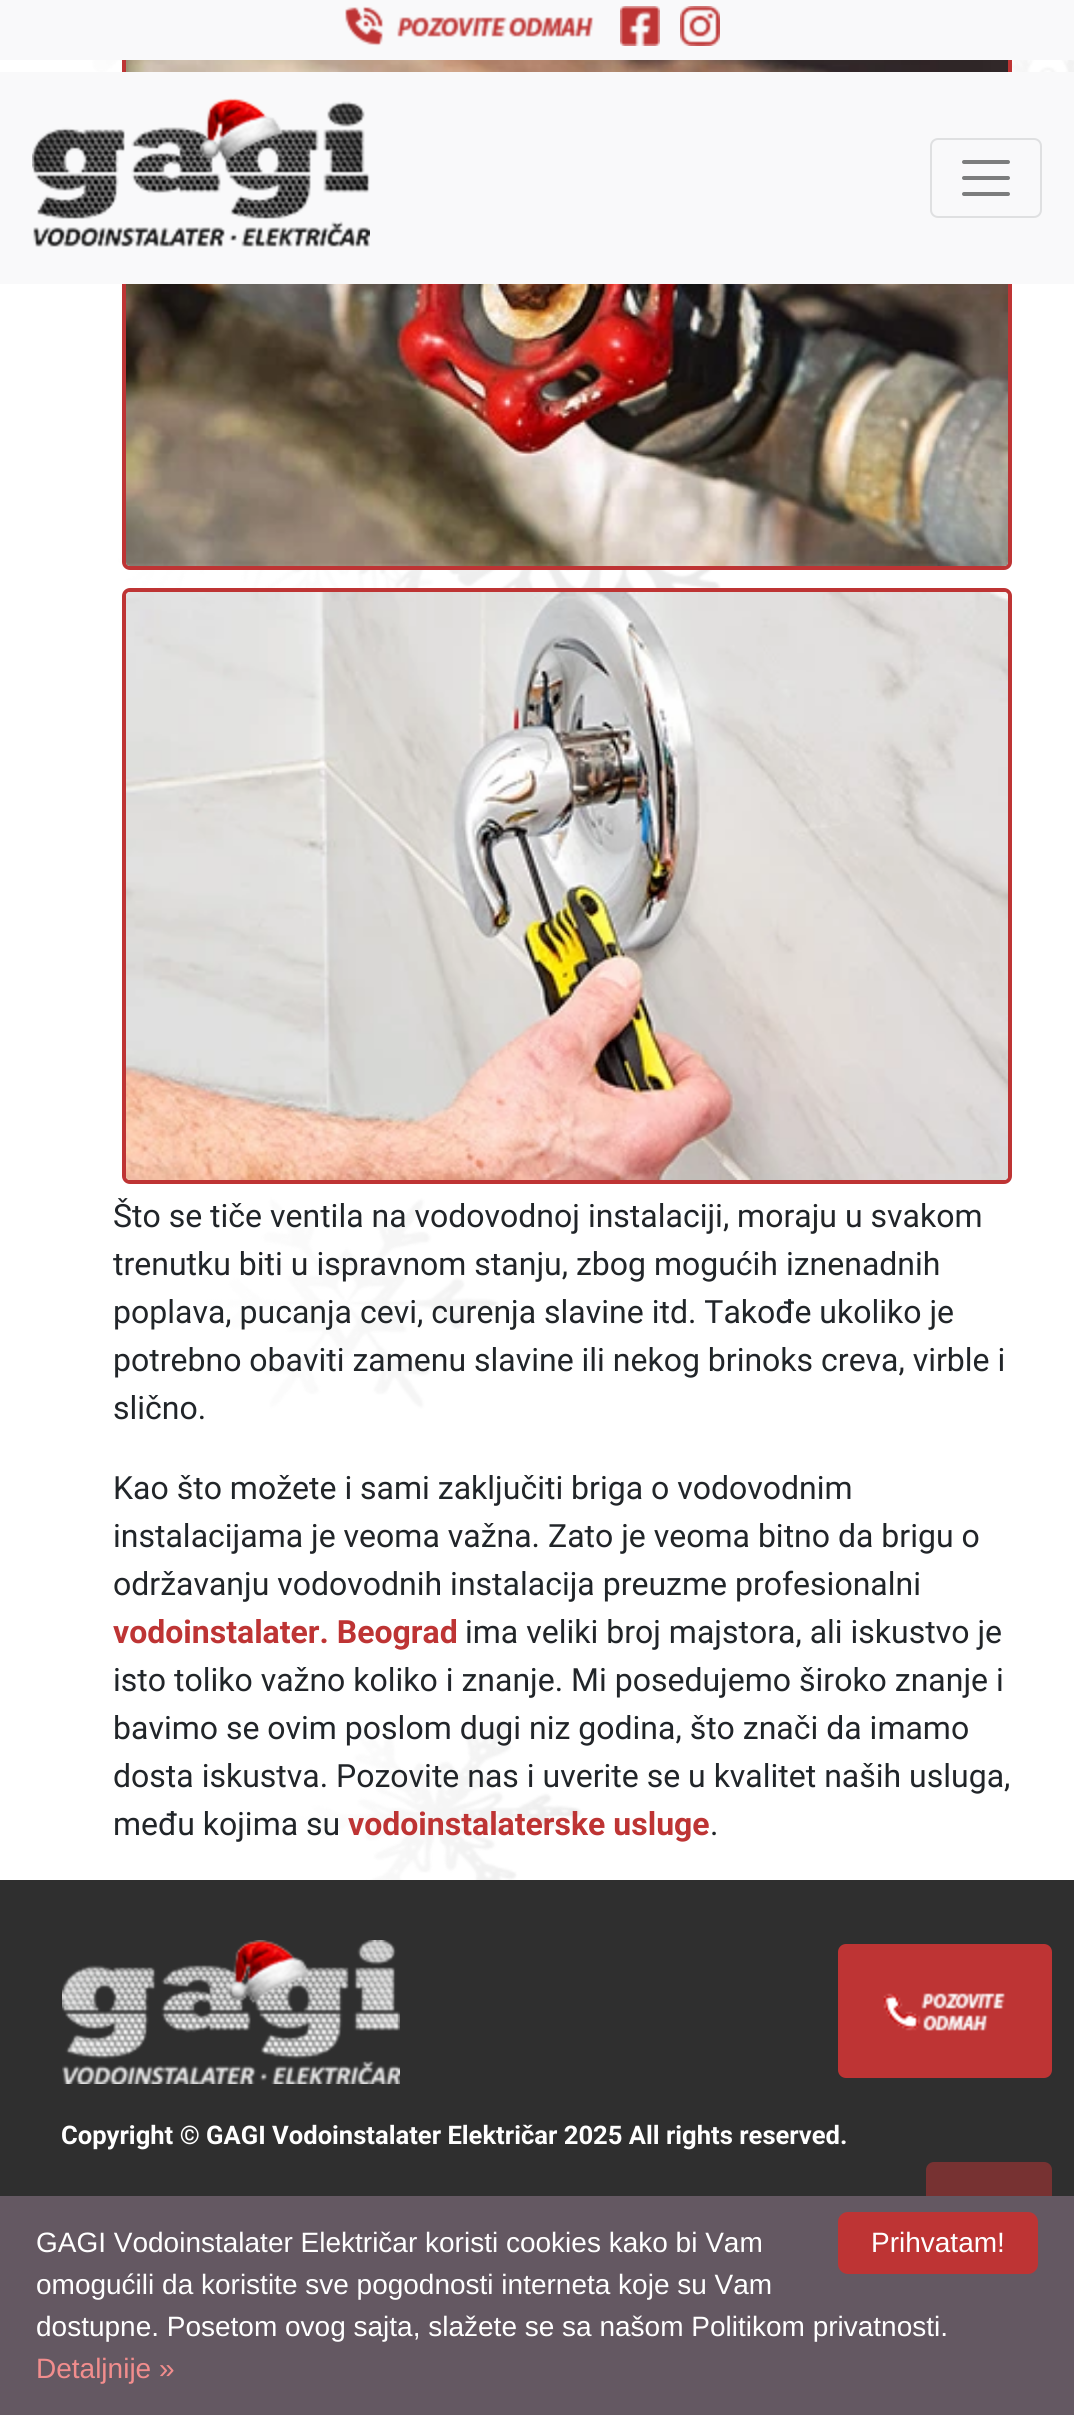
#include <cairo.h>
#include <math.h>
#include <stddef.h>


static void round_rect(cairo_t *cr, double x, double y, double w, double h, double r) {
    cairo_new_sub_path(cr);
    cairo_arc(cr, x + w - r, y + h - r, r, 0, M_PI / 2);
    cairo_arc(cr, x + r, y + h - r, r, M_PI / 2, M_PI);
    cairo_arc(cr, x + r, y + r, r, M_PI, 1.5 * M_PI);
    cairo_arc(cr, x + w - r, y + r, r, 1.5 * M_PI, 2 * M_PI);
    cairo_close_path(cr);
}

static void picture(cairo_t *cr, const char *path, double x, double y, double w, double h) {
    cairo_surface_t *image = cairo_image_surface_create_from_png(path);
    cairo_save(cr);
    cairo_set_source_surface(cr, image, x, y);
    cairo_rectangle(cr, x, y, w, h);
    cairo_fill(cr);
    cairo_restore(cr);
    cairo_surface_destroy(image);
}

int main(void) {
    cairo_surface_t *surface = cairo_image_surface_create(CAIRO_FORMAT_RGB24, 1074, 2415);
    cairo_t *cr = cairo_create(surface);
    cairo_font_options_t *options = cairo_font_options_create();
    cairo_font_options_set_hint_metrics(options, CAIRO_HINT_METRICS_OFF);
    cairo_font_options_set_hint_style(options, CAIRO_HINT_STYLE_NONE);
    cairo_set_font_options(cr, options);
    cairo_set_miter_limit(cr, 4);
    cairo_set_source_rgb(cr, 1, 1, 1);
    cairo_paint(cr);
    picture(cr, "img1.png", 92, 60, 982, 1820);
    round_rect(cr, 124, -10, 886, 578, 6);
    cairo_set_source_rgb(cr, 0.745, 0.204, 0.204);
    cairo_set_line_width(cr, 4);
    cairo_stroke(cr);
    cairo_set_source_rgb(cr, 0.973, 0.976, 0.98);
    cairo_rectangle(cr, 0, 0, 1074, 60);
    cairo_fill(cr);
    picture(cr, "img2.png", 345, 6, 249, 40);
    picture(cr, "img3.png", 620, 6, 40, 40);
    picture(cr, "img4.png", 680, 6, 40, 40);
    picture(cr, "img6.png", 126, 60, 882, 506);
    cairo_rectangle(cr, 0, 72, 1074, 212);
    cairo_fill(cr);
    picture(cr, "img5.png", 32, 98, 338, 149);
    round_rect(cr, 931, 139, 110, 78, 7);
    cairo_set_source_rgb(cr, 0.875, 0.878, 0.882);
    cairo_set_line_width(cr, 2);
    cairo_stroke(cr);
    cairo_new_path(cr);
    cairo_move_to(cr, 964, 162);
    cairo_line_to(cr, 1008, 162);
    cairo_move_to(cr, 964, 178);
    cairo_line_to(cr, 1008, 178);
    cairo_move_to(cr, 964, 194);
    cairo_line_to(cr, 1008, 194);
    cairo_set_source_rgb(cr, 0.486, 0.49, 0.49);
    cairo_set_line_width(cr, 4);
    cairo_set_line_cap(cr, CAIRO_LINE_CAP_ROUND);
    cairo_stroke(cr);
    round_rect(cr, 124, 590, 886, 592, 6);
    cairo_set_source_rgb(cr, 0.745, 0.204, 0.204);
    cairo_set_line_cap(cr, CAIRO_LINE_CAP_BUTT);
    cairo_stroke(cr);
    picture(cr, "img7.png", 126, 592, 882, 588);
    cairo_select_font_face(cr, "Roboto", CAIRO_FONT_SLANT_NORMAL, CAIRO_FONT_WEIGHT_NORMAL);
    cairo_set_font_size(cr, 32);
    cairo_set_source_rgb(cr, 0.129, 0.145, 0.161);
    cairo_move_to(cr, 113, 1227);
    cairo_show_text(cr, "Što se tiče ventila na vodovodnoj instalaciji, moraju u svakom");
    cairo_move_to(cr, 113, 1275);
    cairo_show_text(cr, "trenutku biti u ispravnom stanju, zbog mogućih iznenadnih");
    cairo_move_to(cr, 113, 1323);
    cairo_show_text(cr, "poplava, pucanja cevi, curenja slavine itd. Takođe ukoliko je");
    cairo_move_to(cr, 113, 1371);
    cairo_show_text(cr, "potrebno obaviti zamenu slavine ili nekog brinoks creva, virble i");
    cairo_move_to(cr, 113, 1419);
    cairo_show_text(cr, "slično.");
    cairo_move_to(cr, 113, 1499);
    cairo_show_text(cr, "Kao što možete i sami zaključiti briga o vodovodnim");
    cairo_move_to(cr, 113, 1547);
    cairo_show_text(cr, "instalacijama je veoma važna. Zato je veoma bitno da brigu o");
    cairo_move_to(cr, 113, 1595);
    cairo_show_text(cr, "održavanju vodovodnih instalacija preuzme profesionalni");
    cairo_select_font_face(cr, "Roboto", CAIRO_FONT_SLANT_NORMAL, CAIRO_FONT_WEIGHT_BOLD);
    cairo_set_source_rgb(cr, 0.745, 0.204, 0.204);
    cairo_move_to(cr, 113, 1643);
    cairo_show_text(cr, "vodoinstalater. Beograd");
    cairo_select_font_face(cr, "Roboto", CAIRO_FONT_SLANT_NORMAL, CAIRO_FONT_WEIGHT_NORMAL);
    cairo_set_source_rgb(cr, 0.129, 0.145, 0.161);
    cairo_move_to(cr, 465, 1643);
    cairo_show_text(cr, "ima veliki broj majstora, ali iskustvo je");
    cairo_move_to(cr, 113, 1691);
    cairo_show_text(cr, "isto toliko važno koliko i znanje. Mi posedujemo široko znanje i");
    cairo_move_to(cr, 113, 1739);
    cairo_show_text(cr, "bavimo se ovim poslom dugi niz godina, što znači da imamo");
    cairo_move_to(cr, 113, 1787);
    cairo_show_text(cr, "dosta iskustva. Pozovite nas i uverite se u kvalitet naših usluga,");
    cairo_move_to(cr, 113, 1835);
    cairo_show_text(cr, "među kojima su");
    cairo_select_font_face(cr, "Roboto", CAIRO_FONT_SLANT_NORMAL, CAIRO_FONT_WEIGHT_BOLD);
    cairo_set_source_rgb(cr, 0.745, 0.204, 0.204);
    cairo_move_to(cr, 348, 1835);
    cairo_show_text(cr, "vodoinstalaterske usluge");
    cairo_select_font_face(cr, "Roboto", CAIRO_FONT_SLANT_NORMAL, CAIRO_FONT_WEIGHT_NORMAL);
    cairo_set_source_rgb(cr, 0.129, 0.145, 0.161);
    cairo_move_to(cr, 710, 1835);
    cairo_show_text(cr, ".");
    cairo_set_source_rgb(cr, 0.184, 0.184, 0.184);
    cairo_rectangle(cr, 0, 1880, 1074, 316);
    cairo_fill(cr);
    cairo_set_source_rgb(cr, 0.745, 0.204, 0.204);
    round_rect(cr, 838, 1944, 214, 134, 8);
    cairo_fill(cr);
    picture(cr, "img8.png", 883, 1993, 122, 38);
    picture(cr, "img9.png", 62, 1940, 338, 144);
    cairo_select_font_face(cr, "Roboto", CAIRO_FONT_SLANT_NORMAL, CAIRO_FONT_WEIGHT_BOLD);
    cairo_set_font_size(cr, 25.6);
    cairo_set_source_rgb(cr, 1, 1, 1);
    cairo_move_to(cr, 61, 2144);
    cairo_show_text(cr, "Copyright © GAGI Vodoinstalater Električar 2025 All rights reserved.");
    cairo_set_source_rgb(cr, 0.467, 0.196, 0.196);
    round_rect(cr, 926, 2162, 126, 134, 8);
    cairo_fill(cr);
    cairo_set_source_rgb(cr, 0.392, 0.345, 0.384);
    cairo_rectangle(cr, 0, 2196, 1074, 219);
    cairo_fill(cr);
    cairo_select_font_face(cr, "Liberation Sans", CAIRO_FONT_SLANT_NORMAL, CAIRO_FONT_WEIGHT_NORMAL);
    cairo_set_font_size(cr, 28);
    cairo_set_source_rgb(cr, 1, 1, 1);
    cairo_move_to(cr, 36, 2252);
    cairo_show_text(cr, "GAGI Vodoinstalater Električar koristi cookies kako bi Vam");
    cairo_move_to(cr, 36, 2294);
    cairo_show_text(cr, "omogućili da koristite sve pogodnosti interneta koje su Vam");
    cairo_move_to(cr, 36, 2336);
    cairo_show_text(cr, "dostupne. Posetom ovog sajta, slažete se sa našom Politikom privatnosti.");
    cairo_set_source_rgb(cr, 0.949, 0.553, 0.553);
    cairo_move_to(cr, 36, 2378);
    cairo_show_text(cr, "Detaljnije »");
    cairo_set_source_rgb(cr, 0.745, 0.204, 0.204);
    round_rect(cr, 838, 2212, 200, 62, 10);
    cairo_fill(cr);
    cairo_set_source_rgb(cr, 1, 1, 1);
    cairo_move_to(cr, 871, 2252);
    cairo_show_text(cr, "Prihvatam!");
    cairo_surface_write_to_png(surface, "page.png");
    cairo_font_options_destroy(options);
    cairo_destroy(cr);
    cairo_surface_destroy(surface);
    return 0;
}
